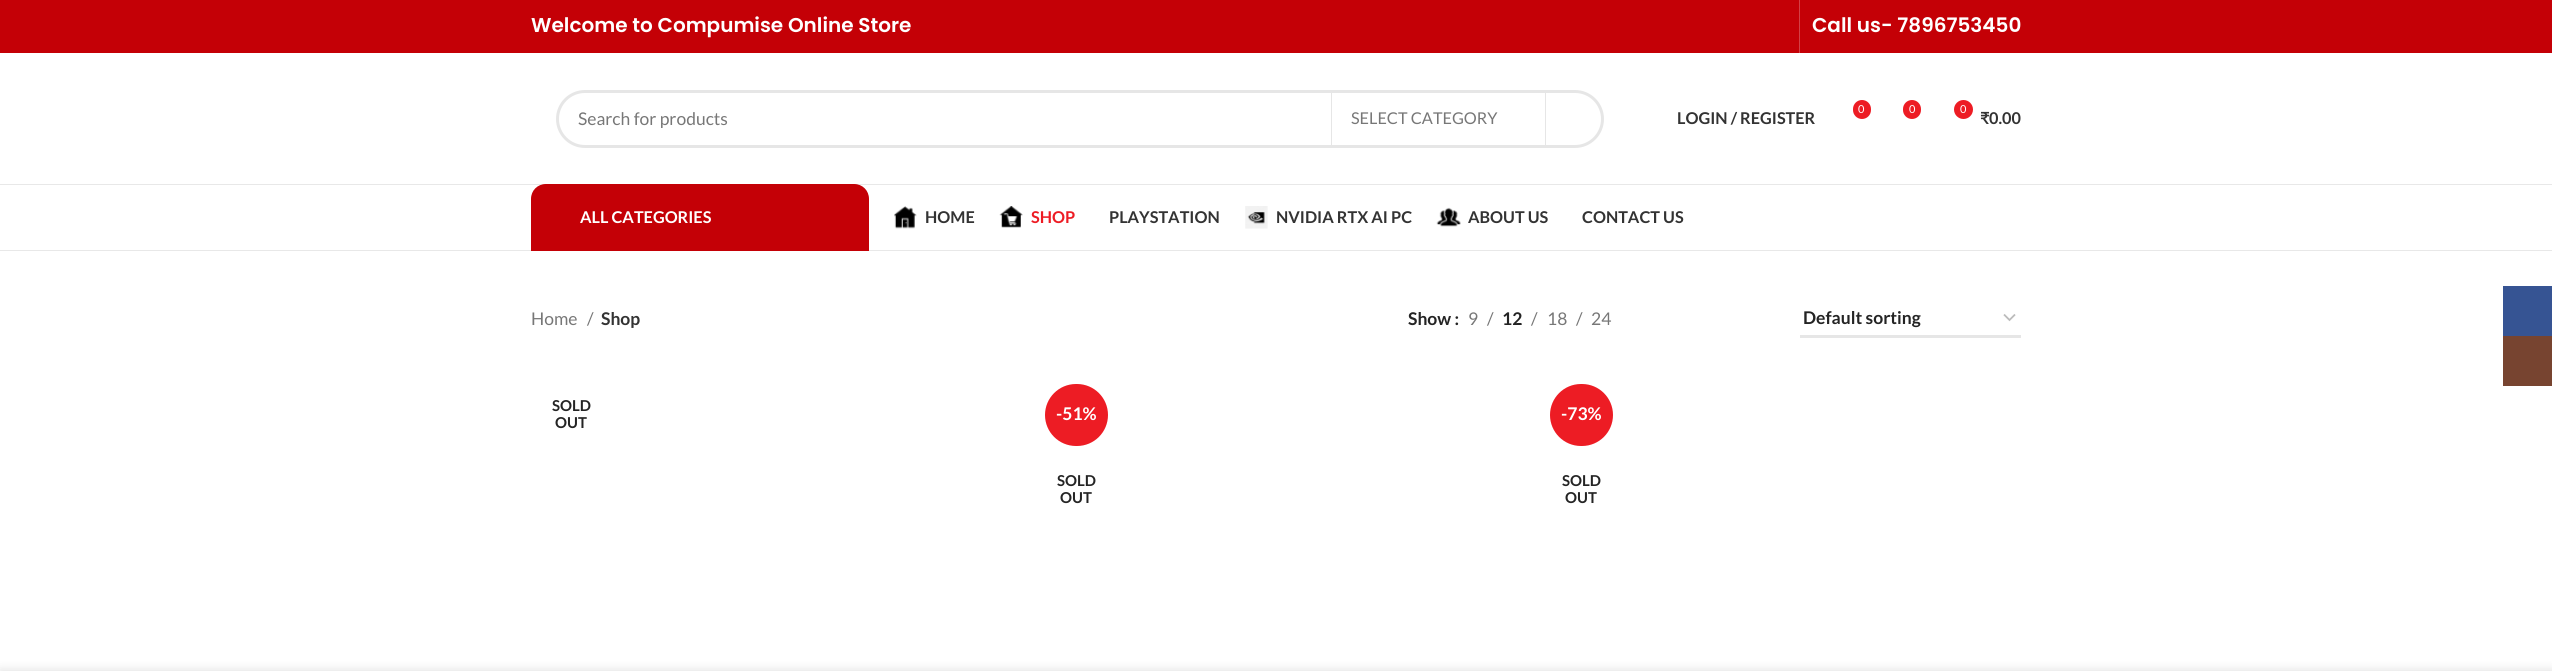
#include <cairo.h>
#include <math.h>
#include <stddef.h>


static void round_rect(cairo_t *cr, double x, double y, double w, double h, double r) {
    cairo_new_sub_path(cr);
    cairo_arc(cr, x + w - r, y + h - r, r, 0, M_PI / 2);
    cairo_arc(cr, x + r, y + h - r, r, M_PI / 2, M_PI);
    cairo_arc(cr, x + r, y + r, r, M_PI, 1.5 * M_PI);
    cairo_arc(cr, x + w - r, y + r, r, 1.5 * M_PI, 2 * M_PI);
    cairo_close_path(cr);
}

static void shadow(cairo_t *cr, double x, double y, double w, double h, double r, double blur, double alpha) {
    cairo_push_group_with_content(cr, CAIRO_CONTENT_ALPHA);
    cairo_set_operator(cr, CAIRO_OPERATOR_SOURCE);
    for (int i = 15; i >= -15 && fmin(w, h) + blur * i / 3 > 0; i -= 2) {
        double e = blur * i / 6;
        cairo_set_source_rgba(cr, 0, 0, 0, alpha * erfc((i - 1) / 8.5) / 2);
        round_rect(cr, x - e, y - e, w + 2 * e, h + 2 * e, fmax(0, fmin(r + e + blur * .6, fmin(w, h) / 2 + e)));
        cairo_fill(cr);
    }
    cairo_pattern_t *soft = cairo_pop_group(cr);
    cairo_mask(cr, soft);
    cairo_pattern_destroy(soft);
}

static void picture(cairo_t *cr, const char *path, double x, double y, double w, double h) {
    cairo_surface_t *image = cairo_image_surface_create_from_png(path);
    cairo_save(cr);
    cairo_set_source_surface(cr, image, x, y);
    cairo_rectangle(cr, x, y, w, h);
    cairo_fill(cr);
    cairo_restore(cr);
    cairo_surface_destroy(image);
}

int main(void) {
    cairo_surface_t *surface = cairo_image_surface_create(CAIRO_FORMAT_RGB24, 2552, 671);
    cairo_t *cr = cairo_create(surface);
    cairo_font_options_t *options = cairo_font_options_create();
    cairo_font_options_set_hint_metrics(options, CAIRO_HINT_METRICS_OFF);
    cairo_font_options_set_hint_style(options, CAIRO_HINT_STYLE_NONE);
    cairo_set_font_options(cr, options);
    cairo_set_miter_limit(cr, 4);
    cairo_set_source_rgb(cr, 1, 1, 1);
    cairo_paint(cr);
    cairo_set_source_rgb(cr, 0.769, 0, 0.027);
    cairo_rectangle(cr, 0, 0, 2552, 53);
    cairo_fill(cr);
    cairo_select_font_face(cr, "Poppins SemiBold", CAIRO_FONT_SLANT_NORMAL, CAIRO_FONT_WEIGHT_NORMAL);
    cairo_set_font_size(cr, 20);
    cairo_set_source_rgb(cr, 1, 1, 1);
    cairo_move_to(cr, 531, 32);
    cairo_show_text(cr, "Welcome to Compumise Online Store");
    cairo_set_source_rgb(cr, 0.827, 0.251, 0.271);
    cairo_rectangle(cr, 1799, 0, 1, 53);
    cairo_fill(cr);
    cairo_set_source_rgb(cr, 1, 1, 1);
    cairo_move_to(cr, 1812, 32);
    cairo_show_text(cr, "Call us- 7896753450");
    cairo_set_source_rgb(cr, 0.91, 0.91, 0.91);
    cairo_rectangle(cr, 0, 184, 2552, 1);
    cairo_fill(cr);
    round_rect(cr, 557.5, 91.5, 1045, 55, 27.5);
    cairo_set_source_rgb(cr, 0.902, 0.902, 0.902);
    cairo_set_line_width(cr, 3);
    cairo_stroke(cr);
    cairo_select_font_face(cr, "Lato", CAIRO_FONT_SLANT_NORMAL, CAIRO_FONT_WEIGHT_NORMAL);
    cairo_set_font_size(cr, 17.5);
    cairo_set_source_rgb(cr, 0.467, 0.467, 0.467);
    cairo_move_to(cr, 578, 125);
    cairo_show_text(cr, "Search for products");
    cairo_set_source_rgb(cr, 0.902, 0.902, 0.902);
    cairo_rectangle(cr, 1545, 93, 1, 52);
    cairo_fill(cr);
    cairo_rectangle(cr, 1331, 93, 1, 52);
    cairo_fill(cr);
    cairo_set_font_size(cr, 16.25);
    cairo_set_source_rgb(cr, 0.467, 0.467, 0.467);
    cairo_move_to(cr, 1351, 124);
    cairo_show_text(cr, "SELECT CATEGORY");
    cairo_select_font_face(cr, "Lato", CAIRO_FONT_SLANT_NORMAL, CAIRO_FONT_WEIGHT_BOLD);
    cairo_set_source_rgb(cr, 0.2, 0.2, 0.2);
    cairo_move_to(cr, 1677, 124);
    cairo_show_text(cr, "LOGIN / REGISTER");
    cairo_set_source_rgb(cr, 0.929, 0.11, 0.141);
    round_rect(cr, 1853, 100, 18, 19, 9);
    cairo_fill(cr);
    cairo_select_font_face(cr, "Lato", CAIRO_FONT_SLANT_NORMAL, CAIRO_FONT_WEIGHT_NORMAL);
    cairo_set_font_size(cr, 11);
    cairo_set_source_rgb(cr, 1, 1, 1);
    cairo_move_to(cr, 1858, 113);
    cairo_show_text(cr, "0");
    cairo_set_source_rgb(cr, 0.929, 0.11, 0.141);
    round_rect(cr, 1903, 100, 18, 19, 9);
    cairo_fill(cr);
    cairo_set_source_rgb(cr, 1, 1, 1);
    cairo_move_to(cr, 1909, 113);
    cairo_show_text(cr, "0");
    cairo_set_source_rgb(cr, 0.929, 0.11, 0.141);
    cairo_new_path(cr);
    cairo_arc(cr, 1963.5, 109.5, 9.5, 0, 2 * M_PI);
    cairo_fill(cr);
    cairo_set_source_rgb(cr, 1, 1, 1);
    cairo_move_to(cr, 1960, 113);
    cairo_show_text(cr, "0");
    cairo_select_font_face(cr, "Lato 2", CAIRO_FONT_SLANT_NORMAL, CAIRO_FONT_WEIGHT_BOLD);
    cairo_set_font_size(cr, 16.25);
    cairo_set_source_rgb(cr, 0.2, 0.2, 0.2);
    cairo_move_to(cr, 1980, 124);
    cairo_show_text(cr, "₹");
    cairo_select_font_face(cr, "Lato", CAIRO_FONT_SLANT_NORMAL, CAIRO_FONT_WEIGHT_BOLD);
    cairo_move_to(cr, 1989, 124);
    cairo_show_text(cr, "0.00");
    cairo_set_source_rgb(cr, 0.91, 0.91, 0.91);
    cairo_rectangle(cr, 0, 250, 2552, 1);
    cairo_fill(cr);
    cairo_set_source_rgb(cr, 0.769, 0, 0.027);
    cairo_new_path(cr);
    cairo_move_to(cr, 546, 184);
    cairo_line_to(cr, 854, 184);
    cairo_curve_to(cr, 862.5, 184, 869, 190.5, 869, 199);
    cairo_line_to(cr, 869, 251);
    cairo_line_to(cr, 531, 251);
    cairo_line_to(cr, 531, 199);
    cairo_curve_to(cr, 531, 190.5, 537.5, 184, 546, 184);
    cairo_close_path(cr);
    cairo_fill(cr);
    cairo_set_source_rgb(cr, 1, 1, 1);
    cairo_move_to(cr, 580, 223);
    cairo_show_text(cr, "ALL CATEGORIES");
    picture(cr, "img1.png", 894, 206, 23, 23);
    cairo_set_source_rgb(cr, 0.2, 0.2, 0.2);
    cairo_move_to(cr, 925, 223);
    cairo_show_text(cr, "HOME");
    picture(cr, "img2.png", 999, 206, 24, 22);
    cairo_set_source_rgb(cr, 0.929, 0.11, 0.141);
    cairo_move_to(cr, 1031, 223);
    cairo_show_text(cr, "SHOP");
    cairo_set_source_rgb(cr, 0.2, 0.2, 0.2);
    cairo_move_to(cr, 1109, 223);
    cairo_show_text(cr, "PLAYSTATION");
    picture(cr, "img3.png", 1245, 206, 23, 23);
    cairo_move_to(cr, 1276, 223);
    cairo_show_text(cr, "NVIDIA RTX AI PC");
    picture(cr, "img4.png", 1436, 207, 25, 20);
    cairo_move_to(cr, 1468, 223);
    cairo_show_text(cr, "ABOUT US");
    cairo_move_to(cr, 1582, 223);
    cairo_show_text(cr, "CONTACT US");
    cairo_select_font_face(cr, "Lato", CAIRO_FONT_SLANT_NORMAL, CAIRO_FONT_WEIGHT_NORMAL);
    cairo_set_font_size(cr, 17.5);
    cairo_set_source_rgb(cr, 0.467, 0.467, 0.467);
    cairo_move_to(cr, 531, 325);
    cairo_show_text(cr, "Home");
    cairo_move_to(cr, 587, 325);
    cairo_show_text(cr, "/");
    cairo_select_font_face(cr, "Lato", CAIRO_FONT_SLANT_NORMAL, CAIRO_FONT_WEIGHT_BOLD);
    cairo_set_source_rgb(cr, 0.2, 0.2, 0.2);
    cairo_move_to(cr, 601, 325);
    cairo_show_text(cr, "Shop");
    cairo_set_source_rgb(cr, 0.141, 0.141, 0.141);
    cairo_move_to(cr, 1408, 325);
    cairo_show_text(cr, "Show :");
    cairo_select_font_face(cr, "Lato", CAIRO_FONT_SLANT_NORMAL, CAIRO_FONT_WEIGHT_NORMAL);
    cairo_set_source_rgb(cr, 0.467, 0.467, 0.467);
    cairo_move_to(cr, 1468, 325);
    cairo_show_text(cr, "9");
    cairo_move_to(cr, 1487, 325);
    cairo_show_text(cr, "/");
    cairo_select_font_face(cr, "Lato", CAIRO_FONT_SLANT_NORMAL, CAIRO_FONT_WEIGHT_BOLD);
    cairo_set_source_rgb(cr, 0.141, 0.141, 0.141);
    cairo_move_to(cr, 1502, 325);
    cairo_show_text(cr, "12");
    cairo_select_font_face(cr, "Lato", CAIRO_FONT_SLANT_NORMAL, CAIRO_FONT_WEIGHT_NORMAL);
    cairo_set_source_rgb(cr, 0.467, 0.467, 0.467);
    cairo_move_to(cr, 1531, 325);
    cairo_show_text(cr, "/");
    cairo_move_to(cr, 1547, 325);
    cairo_show_text(cr, "18");
    cairo_move_to(cr, 1576, 325);
    cairo_show_text(cr, "/");
    cairo_move_to(cr, 1591, 325);
    cairo_show_text(cr, "24");
    cairo_new_path(cr);
    cairo_move_to(cr, 2004, 314.5);
    cairo_line_to(cr, 2009.5, 320);
    cairo_line_to(cr, 2015, 314.5);
    cairo_set_source_rgb(cr, 0.733, 0.733, 0.733);
    cairo_set_line_width(cr, 1.8);
    cairo_stroke(cr);
    cairo_set_source_rgb(cr, 0.902, 0.902, 0.902);
    cairo_rectangle(cr, 1800, 335, 221, 3);
    cairo_fill(cr);
    cairo_select_font_face(cr, "Lato", CAIRO_FONT_SLANT_NORMAL, CAIRO_FONT_WEIGHT_BOLD);
    cairo_set_source_rgb(cr, 0.141, 0.141, 0.141);
    cairo_move_to(cr, 1803, 324);
    cairo_show_text(cr, "Default sorting");
    cairo_set_font_size(cr, 15);
    cairo_move_to(cr, 552, 411);
    cairo_show_text(cr, "SOLD");
    cairo_move_to(cr, 555, 428);
    cairo_show_text(cr, "OUT");
    cairo_set_source_rgb(cr, 0.929, 0.11, 0.141);
    round_rect(cr, 1045, 384, 63, 62, 31);
    cairo_fill(cr);
    cairo_set_font_size(cr, 17.5);
    cairo_set_source_rgb(cr, 1, 1, 1);
    cairo_move_to(cr, 1056, 420);
    cairo_show_text(cr, "-51%");
    cairo_set_font_size(cr, 15);
    cairo_set_source_rgb(cr, 0.141, 0.141, 0.141);
    cairo_move_to(cr, 1057, 486);
    cairo_show_text(cr, "SOLD");
    cairo_move_to(cr, 1060, 503);
    cairo_show_text(cr, "OUT");
    cairo_set_source_rgb(cr, 0.929, 0.11, 0.141);
    round_rect(cr, 1550, 384, 63, 62, 31);
    cairo_fill(cr);
    cairo_set_font_size(cr, 17.5);
    cairo_set_source_rgb(cr, 1, 1, 1);
    cairo_move_to(cr, 1561, 420);
    cairo_show_text(cr, "-73%");
    cairo_set_font_size(cr, 15);
    cairo_set_source_rgb(cr, 0.141, 0.141, 0.141);
    cairo_move_to(cr, 1562, 486);
    cairo_show_text(cr, "SOLD");
    cairo_move_to(cr, 1565, 503);
    cairo_show_text(cr, "OUT");
    cairo_set_source_rgb(cr, 0.212, 0.329, 0.576);
    cairo_rectangle(cr, 2503, 286, 49, 50);
    cairo_fill(cr);
    cairo_set_source_rgb(cr, 0.467, 0.267, 0.188);
    cairo_rectangle(cr, 2503, 336, 49, 50);
    cairo_fill(cr);
    cairo_set_source_rgb(cr, 0, 0, 0);
    shadow(cr, 0, 671, 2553, 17, 0, 5.5, 0.14);
    cairo_surface_write_to_png(surface, "page.png");
    cairo_font_options_destroy(options);
    cairo_destroy(cr);
    cairo_surface_destroy(surface);
    return 0;
}
